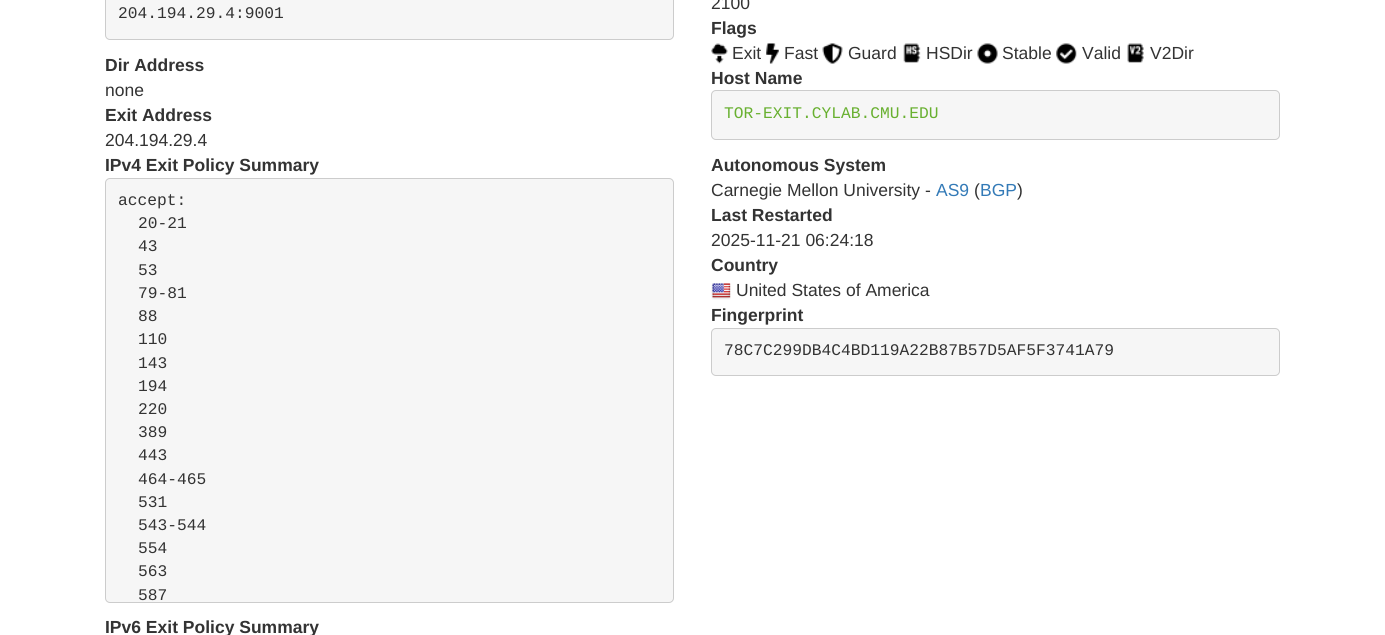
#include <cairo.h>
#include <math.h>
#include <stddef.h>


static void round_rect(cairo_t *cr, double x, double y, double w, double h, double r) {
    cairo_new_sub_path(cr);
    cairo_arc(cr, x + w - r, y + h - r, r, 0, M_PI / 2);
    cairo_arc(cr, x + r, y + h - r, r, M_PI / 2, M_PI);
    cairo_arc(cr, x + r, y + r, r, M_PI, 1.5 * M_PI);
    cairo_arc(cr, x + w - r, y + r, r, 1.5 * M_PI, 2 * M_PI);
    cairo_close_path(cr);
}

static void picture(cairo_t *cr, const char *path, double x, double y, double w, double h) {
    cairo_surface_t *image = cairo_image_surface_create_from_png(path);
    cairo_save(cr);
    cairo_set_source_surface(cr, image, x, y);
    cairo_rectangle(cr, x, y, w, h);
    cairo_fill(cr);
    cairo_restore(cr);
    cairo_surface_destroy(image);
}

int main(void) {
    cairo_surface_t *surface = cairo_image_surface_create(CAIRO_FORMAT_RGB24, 1385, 635);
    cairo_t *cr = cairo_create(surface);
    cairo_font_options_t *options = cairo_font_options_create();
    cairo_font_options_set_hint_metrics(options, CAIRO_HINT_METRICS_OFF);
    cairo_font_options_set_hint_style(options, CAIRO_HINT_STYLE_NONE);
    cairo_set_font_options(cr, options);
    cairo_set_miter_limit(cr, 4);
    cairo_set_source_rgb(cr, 1, 1, 1);
    cairo_paint(cr);
    cairo_set_source_rgb(cr, 0.961, 0.961, 0.961);
    round_rect(cr, 105.5, -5.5, 568, 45, 4.5);
    cairo_fill_preserve(cr);
    cairo_set_source_rgb(cr, 0.8, 0.8, 0.8);
    cairo_set_line_width(cr, 1);
    cairo_stroke(cr);
    cairo_select_font_face(cr, "Liberation Mono", CAIRO_FONT_SLANT_NORMAL, CAIRO_FONT_WEIGHT_NORMAL);
    cairo_set_font_size(cr, 16.25);
    cairo_set_source_rgb(cr, 0.2, 0.2, 0.2);
    cairo_move_to(cr, 118, 18);
    cairo_show_text(cr, "204.194.29.4:9001");
    cairo_select_font_face(cr, "Liberation Sans", CAIRO_FONT_SLANT_NORMAL, CAIRO_FONT_WEIGHT_BOLD);
    cairo_set_font_size(cr, 17.5);
    cairo_move_to(cr, 105, 71);
    cairo_show_text(cr, "Dir Address");
    cairo_select_font_face(cr, "Liberation Sans", CAIRO_FONT_SLANT_NORMAL, CAIRO_FONT_WEIGHT_NORMAL);
    cairo_move_to(cr, 105, 96);
    cairo_show_text(cr, "none");
    cairo_select_font_face(cr, "Liberation Sans", CAIRO_FONT_SLANT_NORMAL, CAIRO_FONT_WEIGHT_BOLD);
    cairo_move_to(cr, 105, 121);
    cairo_show_text(cr, "Exit Address");
    cairo_select_font_face(cr, "Liberation Sans", CAIRO_FONT_SLANT_NORMAL, CAIRO_FONT_WEIGHT_NORMAL);
    cairo_move_to(cr, 105, 146);
    cairo_show_text(cr, "204.194.29.4");
    cairo_select_font_face(cr, "Liberation Sans", CAIRO_FONT_SLANT_NORMAL, CAIRO_FONT_WEIGHT_BOLD);
    cairo_move_to(cr, 105, 171);
    cairo_show_text(cr, "IPv4 Exit Policy Summary");
    cairo_set_source_rgb(cr, 0.961, 0.961, 0.961);
    round_rect(cr, 105.5, 178.5, 568, 424, 4.5);
    cairo_fill_preserve(cr);
    cairo_set_source_rgb(cr, 0.8, 0.8, 0.8);
    cairo_stroke(cr);
    cairo_select_font_face(cr, "Liberation Mono", CAIRO_FONT_SLANT_NORMAL, CAIRO_FONT_WEIGHT_NORMAL);
    cairo_set_font_size(cr, 16.25);
    cairo_set_source_rgb(cr, 0.2, 0.2, 0.2);
    cairo_move_to(cr, 118, 205);
    cairo_show_text(cr, "accept:");
    cairo_move_to(cr, 138, 228);
    cairo_show_text(cr, "20-21");
    cairo_move_to(cr, 138, 251);
    cairo_show_text(cr, "43");
    cairo_move_to(cr, 138, 275);
    cairo_show_text(cr, "53");
    cairo_move_to(cr, 138, 298);
    cairo_show_text(cr, "79-81");
    cairo_move_to(cr, 138, 321);
    cairo_show_text(cr, "88");
    cairo_move_to(cr, 138, 344);
    cairo_show_text(cr, "110");
    cairo_move_to(cr, 138, 368);
    cairo_show_text(cr, "143");
    cairo_move_to(cr, 138, 391);
    cairo_show_text(cr, "194");
    cairo_move_to(cr, 138, 414);
    cairo_show_text(cr, "220");
    cairo_move_to(cr, 138, 437);
    cairo_show_text(cr, "389");
    cairo_move_to(cr, 138, 460);
    cairo_show_text(cr, "443");
    cairo_move_to(cr, 138, 484);
    cairo_show_text(cr, "464-465");
    cairo_move_to(cr, 138, 507);
    cairo_show_text(cr, "531");
    cairo_move_to(cr, 138, 530);
    cairo_show_text(cr, "543-544");
    cairo_move_to(cr, 138, 553);
    cairo_show_text(cr, "554");
    cairo_move_to(cr, 138, 576);
    cairo_show_text(cr, "563");
    cairo_move_to(cr, 138, 600);
    cairo_show_text(cr, "587");
    cairo_select_font_face(cr, "Liberation Sans", CAIRO_FONT_SLANT_NORMAL, CAIRO_FONT_WEIGHT_BOLD);
    cairo_set_font_size(cr, 17.5);
    cairo_move_to(cr, 105, 633);
    cairo_show_text(cr, "IPv6 Exit Policy Summary");
    cairo_select_font_face(cr, "Liberation Sans", CAIRO_FONT_SLANT_NORMAL, CAIRO_FONT_WEIGHT_NORMAL);
    cairo_move_to(cr, 711, 9);
    cairo_show_text(cr, "2100");
    cairo_select_font_face(cr, "Liberation Sans", CAIRO_FONT_SLANT_NORMAL, CAIRO_FONT_WEIGHT_BOLD);
    cairo_move_to(cr, 711, 34);
    cairo_show_text(cr, "Flags");
    picture(cr, "img1.png", 711, 43, 17, 21);
    cairo_select_font_face(cr, "Liberation Sans", CAIRO_FONT_SLANT_NORMAL, CAIRO_FONT_WEIGHT_NORMAL);
    cairo_move_to(cr, 732, 59);
    cairo_show_text(cr, "Exit");
    picture(cr, "img2.png", 766, 43, 13, 21);
    cairo_move_to(cr, 784, 59);
    cairo_show_text(cr, "Fast");
    picture(cr, "img3.png", 822, 43, 21, 21);
    cairo_move_to(cr, 848, 59);
    cairo_show_text(cr, "Guard");
    picture(cr, "img4.png", 903, 43, 18, 20);
    cairo_move_to(cr, 926, 59);
    cairo_show_text(cr, "HSDir");
    picture(cr, "img5.png", 977, 43, 21, 21);
    cairo_move_to(cr, 1002, 59);
    cairo_show_text(cr, "Stable");
    picture(cr, "img6.png", 1056, 43, 21, 21);
    cairo_move_to(cr, 1082, 59);
    cairo_show_text(cr, "Valid");
    picture(cr, "img7.png", 1127, 43, 17, 20);
    cairo_move_to(cr, 1150, 59);
    cairo_show_text(cr, "V2Dir");
    cairo_select_font_face(cr, "Liberation Sans", CAIRO_FONT_SLANT_NORMAL, CAIRO_FONT_WEIGHT_BOLD);
    cairo_move_to(cr, 711, 84);
    cairo_show_text(cr, "Host Name");
    cairo_set_source_rgb(cr, 0.961, 0.961, 0.961);
    round_rect(cr, 711.5, 90.5, 568, 49, 4.5);
    cairo_fill_preserve(cr);
    cairo_set_source_rgb(cr, 0.8, 0.8, 0.8);
    cairo_stroke(cr);
    cairo_select_font_face(cr, "Liberation Mono", CAIRO_FONT_SLANT_NORMAL, CAIRO_FONT_WEIGHT_NORMAL);
    cairo_set_font_size(cr, 16.25);
    cairo_set_source_rgb(cr, 0.408, 0.69, 0.188);
    cairo_move_to(cr, 724, 118);
    cairo_show_text(cr, "TOR-EXIT.CYLAB.CMU.EDU");
    cairo_select_font_face(cr, "Liberation Sans", CAIRO_FONT_SLANT_NORMAL, CAIRO_FONT_WEIGHT_BOLD);
    cairo_set_font_size(cr, 17.5);
    cairo_set_source_rgb(cr, 0.2, 0.2, 0.2);
    cairo_move_to(cr, 711, 171);
    cairo_show_text(cr, "Autonomous System");
    cairo_select_font_face(cr, "Liberation Sans", CAIRO_FONT_SLANT_NORMAL, CAIRO_FONT_WEIGHT_NORMAL);
    cairo_move_to(cr, 711, 196);
    cairo_show_text(cr, "Carnegie Mellon University -");
    cairo_set_source_rgb(cr, 0.2, 0.478, 0.718);
    cairo_move_to(cr, 936, 196);
    cairo_show_text(cr, "AS9");
    cairo_set_source_rgb(cr, 0.2, 0.2, 0.2);
    cairo_move_to(cr, 974, 196);
    cairo_show_text(cr, "(");
    cairo_set_source_rgb(cr, 0.2, 0.478, 0.718);
    cairo_move_to(cr, 980, 196);
    cairo_show_text(cr, "BGP");
    cairo_set_source_rgb(cr, 0.2, 0.2, 0.2);
    cairo_move_to(cr, 1017, 196);
    cairo_show_text(cr, ")");
    cairo_select_font_face(cr, "Liberation Sans", CAIRO_FONT_SLANT_NORMAL, CAIRO_FONT_WEIGHT_BOLD);
    cairo_move_to(cr, 711, 221);
    cairo_show_text(cr, "Last Restarted");
    cairo_select_font_face(cr, "Liberation Sans", CAIRO_FONT_SLANT_NORMAL, CAIRO_FONT_WEIGHT_NORMAL);
    cairo_move_to(cr, 711, 246);
    cairo_show_text(cr, "2025-11-21 06:24:18");
    cairo_select_font_face(cr, "Liberation Sans", CAIRO_FONT_SLANT_NORMAL, CAIRO_FONT_WEIGHT_BOLD);
    cairo_move_to(cr, 711, 271);
    cairo_show_text(cr, "Country");
    picture(cr, "img8.png", 711, 283, 20, 17);
    cairo_select_font_face(cr, "Liberation Sans", CAIRO_FONT_SLANT_NORMAL, CAIRO_FONT_WEIGHT_NORMAL);
    cairo_move_to(cr, 736, 296);
    cairo_show_text(cr, "United States of America");
    cairo_select_font_face(cr, "Liberation Sans", CAIRO_FONT_SLANT_NORMAL, CAIRO_FONT_WEIGHT_BOLD);
    cairo_move_to(cr, 711, 321);
    cairo_show_text(cr, "Fingerprint");
    cairo_set_source_rgb(cr, 0.961, 0.961, 0.961);
    round_rect(cr, 711.5, 328.5, 568, 47, 4.5);
    cairo_fill_preserve(cr);
    cairo_set_source_rgb(cr, 0.8, 0.8, 0.8);
    cairo_stroke(cr);
    cairo_select_font_face(cr, "Liberation Mono", CAIRO_FONT_SLANT_NORMAL, CAIRO_FONT_WEIGHT_NORMAL);
    cairo_set_font_size(cr, 16.25);
    cairo_set_source_rgb(cr, 0.2, 0.2, 0.2);
    cairo_move_to(cr, 724, 355);
    cairo_show_text(cr, "78C7C299DB4C4BD119A22B87B57D5AF5F3741A79");
    cairo_surface_write_to_png(surface, "page.png");
    cairo_font_options_destroy(options);
    cairo_destroy(cr);
    cairo_surface_destroy(surface);
    return 0;
}
